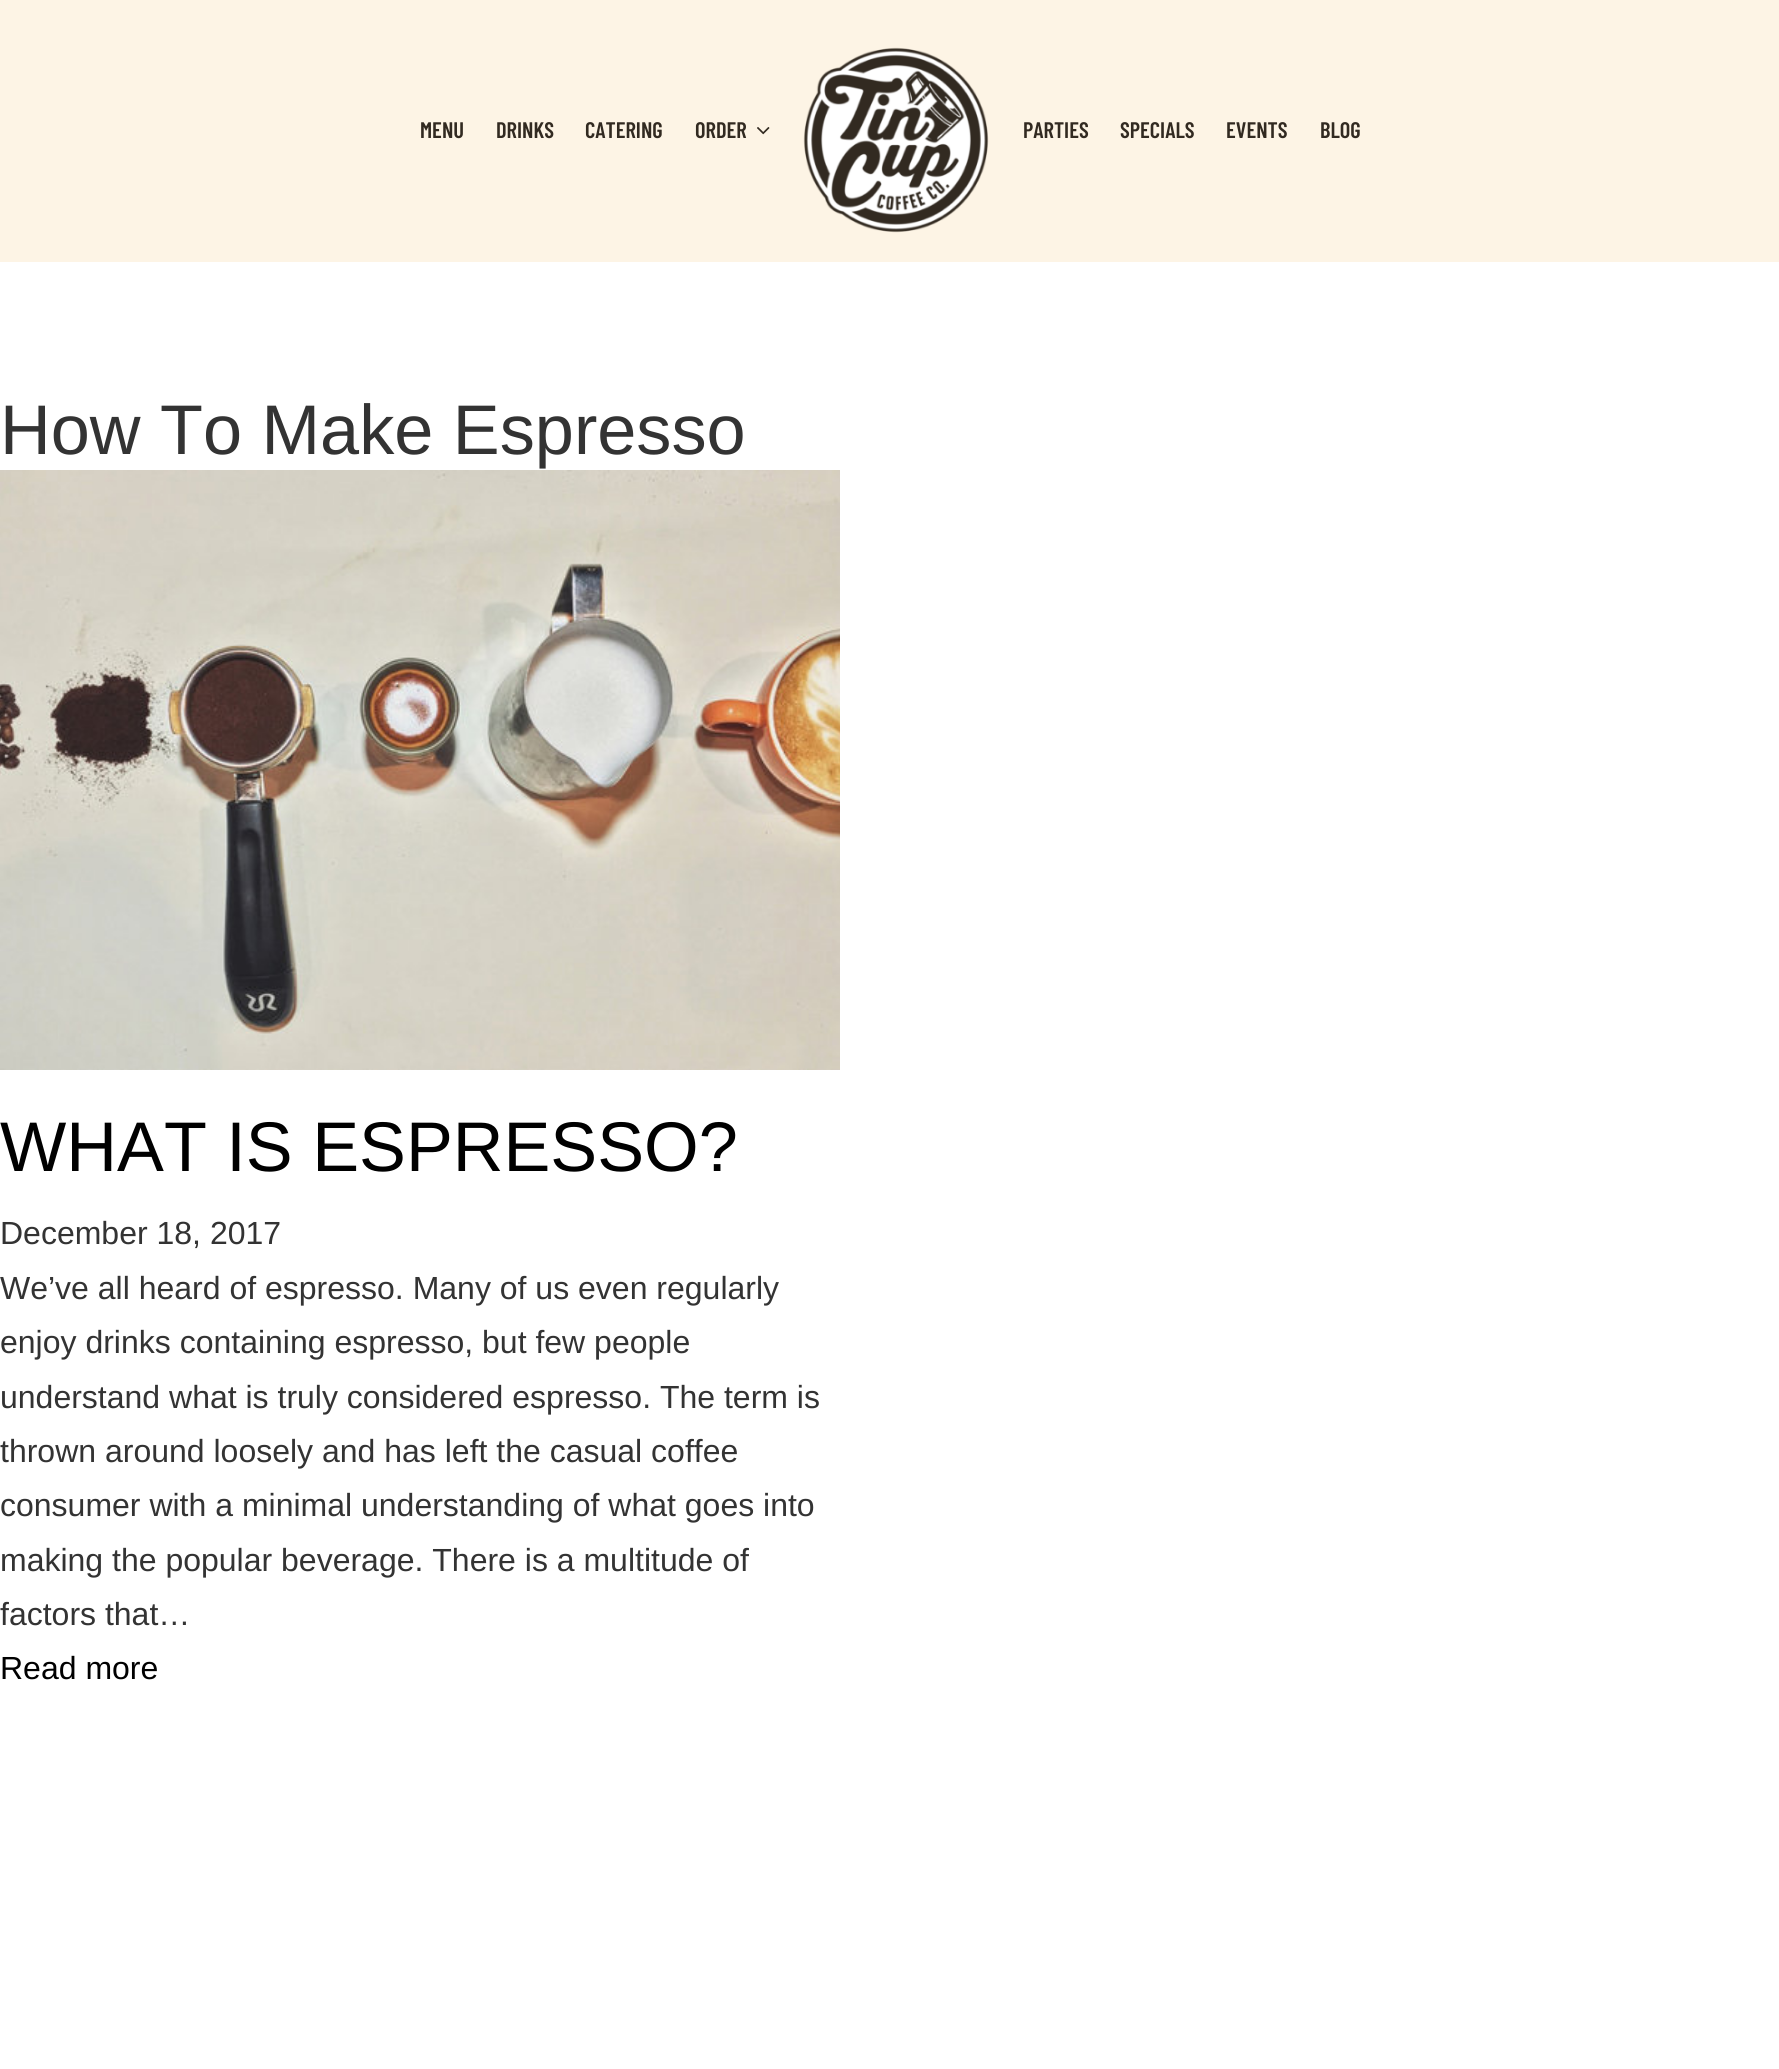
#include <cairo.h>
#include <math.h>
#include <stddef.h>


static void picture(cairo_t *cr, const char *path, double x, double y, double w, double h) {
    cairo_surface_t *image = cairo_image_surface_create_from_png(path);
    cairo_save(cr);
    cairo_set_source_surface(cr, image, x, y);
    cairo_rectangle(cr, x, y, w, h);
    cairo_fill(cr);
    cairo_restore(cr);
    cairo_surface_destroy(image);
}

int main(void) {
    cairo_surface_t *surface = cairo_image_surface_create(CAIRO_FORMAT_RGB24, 1779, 2069);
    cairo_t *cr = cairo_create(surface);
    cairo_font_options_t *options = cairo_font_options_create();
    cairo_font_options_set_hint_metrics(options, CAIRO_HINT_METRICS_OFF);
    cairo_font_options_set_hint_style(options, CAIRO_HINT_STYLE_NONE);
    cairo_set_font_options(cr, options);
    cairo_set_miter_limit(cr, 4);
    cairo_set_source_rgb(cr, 1, 1, 1);
    cairo_paint(cr);
    cairo_set_source_rgb(cr, 0.992, 0.957, 0.898);
    cairo_rectangle(cr, 0, 0, 1779, 262);
    cairo_fill(cr);
    cairo_select_font_face(cr, "Barlow Condensed SemiBold", CAIRO_FONT_SLANT_NORMAL, CAIRO_FONT_WEIGHT_NORMAL);
    cairo_set_font_size(cr, 22.5);
    cairo_set_source_rgb(cr, 0.196, 0.165, 0.129);
    cairo_move_to(cr, 420, 138);
    cairo_show_text(cr, "MENU");
    cairo_move_to(cr, 496, 138);
    cairo_show_text(cr, "DRINKS");
    cairo_move_to(cr, 585, 138);
    cairo_show_text(cr, "CATERING");
    cairo_move_to(cr, 695, 138);
    cairo_show_text(cr, "ORDER");
    picture(cr, "img1.png", 757, 127, 13, 8);
    picture(cr, "img2.png", 803, 47, 186, 186);
    cairo_move_to(cr, 1023, 138);
    cairo_show_text(cr, "PARTIES");
    cairo_move_to(cr, 1120, 138);
    cairo_show_text(cr, "SPECIALS");
    cairo_move_to(cr, 1226, 138);
    cairo_show_text(cr, "EVENTS");
    cairo_move_to(cr, 1320, 138);
    cairo_show_text(cr, "BLOG");
    cairo_select_font_face(cr, "Liberation Sans", CAIRO_FONT_SLANT_NORMAL, CAIRO_FONT_WEIGHT_NORMAL);
    cairo_set_font_size(cr, 70.25);
    cairo_set_source_rgb(cr, 0.2, 0.2, 0.2);
    cairo_move_to(cr, 0, 454);
    cairo_show_text(cr, "How To Make Espresso");
    picture(cr, "img3.png", 0, 470, 840, 600);
    cairo_set_source_rgb(cr, 0, 0, 0);
    cairo_move_to(cr, 0, 1171);
    cairo_show_text(cr, "WHAT IS ESPRESSO?");
    cairo_set_font_size(cr, 32);
    cairo_set_source_rgb(cr, 0.2, 0.2, 0.2);
    cairo_move_to(cr, 0, 1244);
    cairo_show_text(cr, "December 18, 2017");
    cairo_move_to(cr, 0, 1299);
    cairo_show_text(cr, "We’ve all heard of espresso. Many of us even regularly");
    cairo_move_to(cr, 0, 1353);
    cairo_show_text(cr, "enjoy drinks containing espresso, but few people");
    cairo_move_to(cr, 0, 1408);
    cairo_show_text(cr, "understand what is truly considered espresso. The term is");
    cairo_move_to(cr, 0, 1462);
    cairo_show_text(cr, "thrown around loosely and has left the casual coffee");
    cairo_move_to(cr, 0, 1516);
    cairo_show_text(cr, "consumer with a minimal understanding of what goes into");
    cairo_move_to(cr, 0, 1571);
    cairo_show_text(cr, "making the popular beverage. There is a multitude of");
    cairo_move_to(cr, 0, 1625);
    cairo_show_text(cr, "factors that…");
    cairo_set_source_rgb(cr, 0, 0, 0);
    cairo_move_to(cr, 0, 1679);
    cairo_show_text(cr, "Read more");
    cairo_surface_write_to_png(surface, "page.png");
    cairo_font_options_destroy(options);
    cairo_destroy(cr);
    cairo_surface_destroy(surface);
    return 0;
}
